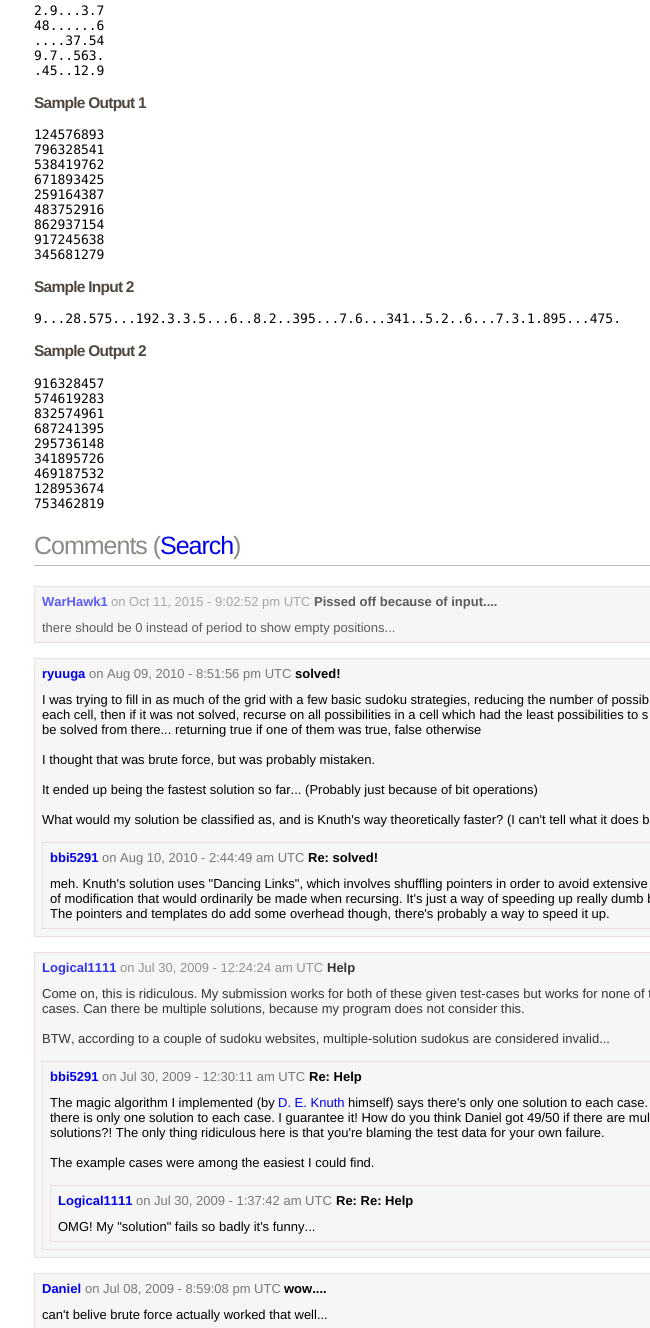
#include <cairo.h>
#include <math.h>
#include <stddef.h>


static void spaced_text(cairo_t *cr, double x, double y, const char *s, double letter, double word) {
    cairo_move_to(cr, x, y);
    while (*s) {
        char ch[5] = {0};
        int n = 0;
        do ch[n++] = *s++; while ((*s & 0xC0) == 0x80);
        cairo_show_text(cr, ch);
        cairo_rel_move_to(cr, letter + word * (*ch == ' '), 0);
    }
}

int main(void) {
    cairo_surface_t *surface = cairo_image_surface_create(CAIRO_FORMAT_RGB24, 650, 1328);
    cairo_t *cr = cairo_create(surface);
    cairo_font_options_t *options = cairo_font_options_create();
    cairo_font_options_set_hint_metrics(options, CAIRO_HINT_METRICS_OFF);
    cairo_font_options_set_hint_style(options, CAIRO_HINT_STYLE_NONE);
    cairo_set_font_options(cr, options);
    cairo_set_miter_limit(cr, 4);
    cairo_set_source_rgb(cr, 1, 1, 1);
    cairo_paint(cr);
    cairo_select_font_face(cr, "DejaVu Sans Mono", CAIRO_FONT_SLANT_NORMAL, CAIRO_FONT_WEIGHT_NORMAL);
    cairo_set_font_size(cr, 13);
    cairo_set_source_rgb(cr, 0, 0, 0);
    cairo_move_to(cr, 34, 15);
    cairo_show_text(cr, "2.9...3.7");
    cairo_move_to(cr, 34, 30);
    cairo_show_text(cr, "48......6");
    cairo_move_to(cr, 34, 45);
    cairo_show_text(cr, "....37.54");
    cairo_move_to(cr, 34, 60);
    cairo_show_text(cr, "9.7..563.");
    cairo_move_to(cr, 34, 75);
    cairo_show_text(cr, ".45..12.9");
    cairo_select_font_face(cr, "Liberation Sans", CAIRO_FONT_SLANT_NORMAL, CAIRO_FONT_WEIGHT_BOLD);
    cairo_set_font_size(cr, 15.5);
    cairo_set_source_rgb(cr, 0.306, 0.275, 0.247);
    spaced_text(cr, 34, 108, "Sample Output 1", -0.75, 0);
    cairo_select_font_face(cr, "DejaVu Sans Mono", CAIRO_FONT_SLANT_NORMAL, CAIRO_FONT_WEIGHT_NORMAL);
    cairo_set_font_size(cr, 13);
    cairo_set_source_rgb(cr, 0, 0, 0);
    cairo_move_to(cr, 34, 139);
    cairo_show_text(cr, "124576893");
    cairo_move_to(cr, 34, 154);
    cairo_show_text(cr, "796328541");
    cairo_move_to(cr, 34, 169);
    cairo_show_text(cr, "538419762");
    cairo_move_to(cr, 34, 184);
    cairo_show_text(cr, "671893425");
    cairo_move_to(cr, 34, 199);
    cairo_show_text(cr, "259164387");
    cairo_move_to(cr, 34, 214);
    cairo_show_text(cr, "483752916");
    cairo_move_to(cr, 34, 229);
    cairo_show_text(cr, "862937154");
    cairo_move_to(cr, 34, 244);
    cairo_show_text(cr, "917245638");
    cairo_move_to(cr, 34, 259);
    cairo_show_text(cr, "345681279");
    cairo_select_font_face(cr, "Liberation Sans", CAIRO_FONT_SLANT_NORMAL, CAIRO_FONT_WEIGHT_BOLD);
    cairo_set_font_size(cr, 15.5);
    cairo_set_source_rgb(cr, 0.306, 0.275, 0.247);
    spaced_text(cr, 34, 292, "Sample Input 2", -0.75, 0);
    cairo_select_font_face(cr, "DejaVu Sans Mono", CAIRO_FONT_SLANT_NORMAL, CAIRO_FONT_WEIGHT_NORMAL);
    cairo_set_font_size(cr, 13);
    cairo_set_source_rgb(cr, 0, 0, 0);
    cairo_move_to(cr, 34, 323);
    cairo_show_text(cr, "9...28.575...192.3.3.5...6..8.2..395...7.6...341..5.2..6...7.3.1.895...475.");
    cairo_select_font_face(cr, "Liberation Sans", CAIRO_FONT_SLANT_NORMAL, CAIRO_FONT_WEIGHT_BOLD);
    cairo_set_font_size(cr, 15.5);
    cairo_set_source_rgb(cr, 0.306, 0.275, 0.247);
    spaced_text(cr, 34, 356, "Sample Output 2", -0.75, 0);
    cairo_select_font_face(cr, "DejaVu Sans Mono", CAIRO_FONT_SLANT_NORMAL, CAIRO_FONT_WEIGHT_NORMAL);
    cairo_set_font_size(cr, 13);
    cairo_set_source_rgb(cr, 0, 0, 0);
    cairo_move_to(cr, 34, 388);
    cairo_show_text(cr, "916328457");
    cairo_move_to(cr, 34, 403);
    cairo_show_text(cr, "574619283");
    cairo_move_to(cr, 34, 418);
    cairo_show_text(cr, "832574961");
    cairo_move_to(cr, 34, 433);
    cairo_show_text(cr, "687241395");
    cairo_move_to(cr, 34, 448);
    cairo_show_text(cr, "295736148");
    cairo_move_to(cr, 34, 463);
    cairo_show_text(cr, "341895726");
    cairo_move_to(cr, 34, 478);
    cairo_show_text(cr, "469187532");
    cairo_move_to(cr, 34, 493);
    cairo_show_text(cr, "128953674");
    cairo_move_to(cr, 34, 508);
    cairo_show_text(cr, "753462819");
    cairo_set_source_rgb(cr, 0.733, 0.733, 0.733);
    cairo_rectangle(cr, 34, 565, 616, 1);
    cairo_fill(cr);
    cairo_select_font_face(cr, "Liberation Sans", CAIRO_FONT_SLANT_NORMAL, CAIRO_FONT_WEIGHT_NORMAL);
    cairo_set_font_size(cr, 25);
    cairo_set_source_rgb(cr, 0.549, 0.537, 0.518);
    spaced_text(cr, 34, 554, "Comments (", -1, 0);
    cairo_set_source_rgb(cr, 0, 0, 0.933);
    spaced_text(cr, 160, 554, "Search", -1, 0);
    cairo_set_source_rgb(cr, 0.549, 0.537, 0.518);
    spaced_text(cr, 233, 554, ")", -1, 0);
    cairo_set_source_rgb(cr, 0.961, 0.961, 0.961);
    cairo_rectangle(cr, 34.5, 586.5, 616, 56);
    cairo_fill_preserve(cr);
    cairo_set_source_rgb(cr, 0.933, 0.867, 0.867);
    cairo_set_line_width(cr, 1);
    cairo_stroke(cr);
    cairo_select_font_face(cr, "Liberation Sans", CAIRO_FONT_SLANT_NORMAL, CAIRO_FONT_WEIGHT_BOLD);
    cairo_set_font_size(cr, 13);
    cairo_set_source_rgb(cr, 0.361, 0.361, 0.945);
    cairo_move_to(cr, 42, 606);
    cairo_show_text(cr, "WarHawk1");
    cairo_select_font_face(cr, "Liberation Sans", CAIRO_FONT_SLANT_NORMAL, CAIRO_FONT_WEIGHT_NORMAL);
    cairo_set_source_rgb(cr, 0.651, 0.651, 0.651);
    cairo_move_to(cr, 111, 606);
    cairo_show_text(cr, "on Oct 11, 2015 - 9:02:52 pm UTC");
    cairo_select_font_face(cr, "Liberation Sans", CAIRO_FONT_SLANT_NORMAL, CAIRO_FONT_WEIGHT_BOLD);
    cairo_set_source_rgb(cr, 0.361, 0.361, 0.361);
    cairo_move_to(cr, 314, 606);
    cairo_show_text(cr, "Pissed off because of input....");
    cairo_select_font_face(cr, "Liberation Sans", CAIRO_FONT_SLANT_NORMAL, CAIRO_FONT_WEIGHT_NORMAL);
    cairo_move_to(cr, 42, 632);
    cairo_show_text(cr, "there should be 0 instead of period to show empty positions...");
    cairo_set_source_rgb(cr, 0.961, 0.961, 0.961);
    cairo_rectangle(cr, 34.5, 658.5, 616, 278);
    cairo_fill_preserve(cr);
    cairo_set_source_rgb(cr, 0.933, 0.867, 0.867);
    cairo_stroke(cr);
    cairo_select_font_face(cr, "Liberation Sans", CAIRO_FONT_SLANT_NORMAL, CAIRO_FONT_WEIGHT_BOLD);
    cairo_set_source_rgb(cr, 0, 0, 0.933);
    cairo_move_to(cr, 42, 678);
    cairo_show_text(cr, "ryuuga");
    cairo_select_font_face(cr, "Liberation Sans", CAIRO_FONT_SLANT_NORMAL, CAIRO_FONT_WEIGHT_NORMAL);
    cairo_set_source_rgb(cr, 0.467, 0.467, 0.467);
    cairo_move_to(cr, 89, 678);
    cairo_show_text(cr, "on Aug 09, 2010 - 8:51:56 pm UTC");
    cairo_select_font_face(cr, "Liberation Sans", CAIRO_FONT_SLANT_NORMAL, CAIRO_FONT_WEIGHT_BOLD);
    cairo_set_source_rgb(cr, 0, 0, 0);
    cairo_move_to(cr, 295, 678);
    cairo_show_text(cr, "solved!");
    cairo_select_font_face(cr, "Liberation Sans", CAIRO_FONT_SLANT_NORMAL, CAIRO_FONT_WEIGHT_NORMAL);
    cairo_move_to(cr, 42, 704);
    cairo_show_text(cr, "I was trying to fill in as much of the grid with a few basic sudoku strategies, reducing the number of possib");
    cairo_move_to(cr, 42, 719);
    cairo_show_text(cr, "each cell, then if it was not solved, recurse on all possibilities in a cell which had the least possibilities to s");
    cairo_move_to(cr, 42, 734);
    cairo_show_text(cr, "be solved from there... returning true if one of them was true, false otherwise");
    cairo_move_to(cr, 42, 764);
    cairo_show_text(cr, "I thought that was brute force, but was probably mistaken.");
    cairo_move_to(cr, 42, 794);
    cairo_show_text(cr, "It ended up being the fastest solution so far... (Probably just because of bit operations)");
    cairo_move_to(cr, 42, 824);
    cairo_show_text(cr, "What would my solution be classified as, and is Knuth's way theoretically faster? (I can't tell what it does b");
    cairo_rectangle(cr, 42.5, 842.5, 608, 86);
    cairo_set_source_rgb(cr, 0.933, 0.867, 0.867);
    cairo_stroke(cr);
    cairo_select_font_face(cr, "Liberation Sans", CAIRO_FONT_SLANT_NORMAL, CAIRO_FONT_WEIGHT_BOLD);
    cairo_set_source_rgb(cr, 0, 0, 0.933);
    cairo_move_to(cr, 50, 862);
    cairo_show_text(cr, "bbi5291");
    cairo_select_font_face(cr, "Liberation Sans", CAIRO_FONT_SLANT_NORMAL, CAIRO_FONT_WEIGHT_NORMAL);
    cairo_set_source_rgb(cr, 0.467, 0.467, 0.467);
    cairo_move_to(cr, 102, 862);
    cairo_show_text(cr, "on Aug 10, 2010 - 2:44:49 am UTC");
    cairo_select_font_face(cr, "Liberation Sans", CAIRO_FONT_SLANT_NORMAL, CAIRO_FONT_WEIGHT_BOLD);
    cairo_set_source_rgb(cr, 0, 0, 0);
    cairo_move_to(cr, 308, 862);
    cairo_show_text(cr, "Re: solved!");
    cairo_select_font_face(cr, "Liberation Sans", CAIRO_FONT_SLANT_NORMAL, CAIRO_FONT_WEIGHT_NORMAL);
    cairo_move_to(cr, 50, 888);
    cairo_show_text(cr, "meh. Knuth's solution uses \"Dancing Links\", which involves shuffling pointers in order to avoid extensive");
    cairo_move_to(cr, 50, 903);
    cairo_show_text(cr, "of modification that would ordinarily be made when recursing. It's just a way of speeding up really dumb b");
    cairo_move_to(cr, 50, 918);
    cairo_show_text(cr, "The pointers and templates do add some overhead though, there's probably a way to speed it up.");
    cairo_set_source_rgb(cr, 0.961, 0.961, 0.961);
    cairo_rectangle(cr, 34.5, 952.5, 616, 305);
    cairo_fill_preserve(cr);
    cairo_set_source_rgb(cr, 0.933, 0.867, 0.867);
    cairo_stroke(cr);
    cairo_select_font_face(cr, "Liberation Sans", CAIRO_FONT_SLANT_NORMAL, CAIRO_FONT_WEIGHT_BOLD);
    cairo_set_source_rgb(cr, 0.2, 0.2, 0.937);
    cairo_move_to(cr, 42, 972);
    cairo_show_text(cr, "Logical1111");
    cairo_select_font_face(cr, "Liberation Sans", CAIRO_FONT_SLANT_NORMAL, CAIRO_FONT_WEIGHT_NORMAL);
    cairo_set_source_rgb(cr, 0.569, 0.569, 0.569);
    cairo_move_to(cr, 120, 972);
    cairo_show_text(cr, "on Jul 30, 2009 - 12:24:24 am UTC");
    cairo_select_font_face(cr, "Liberation Sans", CAIRO_FONT_SLANT_NORMAL, CAIRO_FONT_WEIGHT_BOLD);
    cairo_set_source_rgb(cr, 0.2, 0.2, 0.2);
    cairo_move_to(cr, 327, 972);
    cairo_show_text(cr, "Help");
    cairo_select_font_face(cr, "Liberation Sans", CAIRO_FONT_SLANT_NORMAL, CAIRO_FONT_WEIGHT_NORMAL);
    cairo_move_to(cr, 42, 998);
    cairo_show_text(cr, "Come on, this is ridiculous. My submission works for both of these given test-cases but works for none of t");
    cairo_move_to(cr, 42, 1013);
    cairo_show_text(cr, "cases. Can there be multiple solutions, because my program does not consider this.");
    cairo_move_to(cr, 42, 1043);
    cairo_show_text(cr, "BTW, according to a couple of sudoku websites, multiple-solution sudokus are considered invalid...");
    cairo_rectangle(cr, 42.5, 1061.5, 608, 188);
    cairo_set_source_rgb(cr, 0.933, 0.867, 0.867);
    cairo_stroke(cr);
    cairo_select_font_face(cr, "Liberation Sans", CAIRO_FONT_SLANT_NORMAL, CAIRO_FONT_WEIGHT_BOLD);
    cairo_set_source_rgb(cr, 0, 0, 0.933);
    cairo_move_to(cr, 50, 1081);
    cairo_show_text(cr, "bbi5291");
    cairo_select_font_face(cr, "Liberation Sans", CAIRO_FONT_SLANT_NORMAL, CAIRO_FONT_WEIGHT_NORMAL);
    cairo_set_source_rgb(cr, 0.467, 0.467, 0.467);
    cairo_move_to(cr, 102, 1081);
    cairo_show_text(cr, "on Jul 30, 2009 - 12:30:11 am UTC");
    cairo_select_font_face(cr, "Liberation Sans", CAIRO_FONT_SLANT_NORMAL, CAIRO_FONT_WEIGHT_BOLD);
    cairo_set_source_rgb(cr, 0, 0, 0);
    cairo_move_to(cr, 309, 1081);
    cairo_show_text(cr, "Re: Help");
    cairo_select_font_face(cr, "Liberation Sans", CAIRO_FONT_SLANT_NORMAL, CAIRO_FONT_WEIGHT_NORMAL);
    cairo_move_to(cr, 50, 1107);
    cairo_show_text(cr, "The magic algorithm I implemented (by");
    cairo_set_source_rgb(cr, 0, 0, 0.933);
    cairo_move_to(cr, 278, 1107);
    cairo_show_text(cr, "D. E. Knuth");
    cairo_set_source_rgb(cr, 0, 0, 0);
    cairo_move_to(cr, 348, 1107);
    cairo_show_text(cr, "himself) says there's only one solution to each case.");
    cairo_move_to(cr, 50, 1122);
    cairo_show_text(cr, "there is only one solution to each case. I guarantee it! How do you think Daniel got 49/50 if there are mul");
    cairo_move_to(cr, 50, 1137);
    cairo_show_text(cr, "solutions?! The only thing ridiculous here is that you're blaming the test data for your own failure.");
    cairo_move_to(cr, 50, 1167);
    cairo_show_text(cr, "The example cases were among the easiest I could find.");
    cairo_rectangle(cr, 50.5, 1185.5, 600, 56);
    cairo_set_source_rgb(cr, 0.933, 0.867, 0.867);
    cairo_stroke(cr);
    cairo_select_font_face(cr, "Liberation Sans", CAIRO_FONT_SLANT_NORMAL, CAIRO_FONT_WEIGHT_BOLD);
    cairo_set_source_rgb(cr, 0, 0, 0.933);
    cairo_move_to(cr, 58, 1205);
    cairo_show_text(cr, "Logical1111");
    cairo_select_font_face(cr, "Liberation Sans", CAIRO_FONT_SLANT_NORMAL, CAIRO_FONT_WEIGHT_NORMAL);
    cairo_set_source_rgb(cr, 0.467, 0.467, 0.467);
    cairo_move_to(cr, 136, 1205);
    cairo_show_text(cr, "on Jul 30, 2009 - 1:37:42 am UTC");
    cairo_select_font_face(cr, "Liberation Sans", CAIRO_FONT_SLANT_NORMAL, CAIRO_FONT_WEIGHT_BOLD);
    cairo_set_source_rgb(cr, 0, 0, 0);
    cairo_move_to(cr, 336, 1205);
    cairo_show_text(cr, "Re: Re: Help");
    cairo_select_font_face(cr, "Liberation Sans", CAIRO_FONT_SLANT_NORMAL, CAIRO_FONT_WEIGHT_NORMAL);
    cairo_move_to(cr, 58, 1231);
    cairo_show_text(cr, "OMG! My \"solution\" fails so badly it's funny...");
    cairo_set_source_rgb(cr, 0.961, 0.961, 0.961);
    cairo_rectangle(cr, 34.5, 1273.5, 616, 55);
    cairo_fill_preserve(cr);
    cairo_set_source_rgb(cr, 0.933, 0.867, 0.867);
    cairo_stroke(cr);
    cairo_select_font_face(cr, "Liberation Sans", CAIRO_FONT_SLANT_NORMAL, CAIRO_FONT_WEIGHT_BOLD);
    cairo_set_source_rgb(cr, 0, 0, 0.933);
    cairo_move_to(cr, 42, 1293);
    cairo_show_text(cr, "Daniel");
    cairo_select_font_face(cr, "Liberation Sans", CAIRO_FONT_SLANT_NORMAL, CAIRO_FONT_WEIGHT_NORMAL);
    cairo_set_source_rgb(cr, 0.467, 0.467, 0.467);
    cairo_move_to(cr, 85, 1293);
    cairo_show_text(cr, "on Jul 08, 2009 - 8:59:08 pm UTC");
    cairo_select_font_face(cr, "Liberation Sans", CAIRO_FONT_SLANT_NORMAL, CAIRO_FONT_WEIGHT_BOLD);
    cairo_set_source_rgb(cr, 0, 0, 0);
    cairo_move_to(cr, 284, 1293);
    cairo_show_text(cr, "wow....");
    cairo_select_font_face(cr, "Liberation Sans", CAIRO_FONT_SLANT_NORMAL, CAIRO_FONT_WEIGHT_NORMAL);
    cairo_move_to(cr, 42, 1319);
    cairo_show_text(cr, "can't belive brute force actually worked that well...");
    cairo_surface_write_to_png(surface, "page.png");
    cairo_font_options_destroy(options);
    cairo_destroy(cr);
    cairo_surface_destroy(surface);
    return 0;
}
